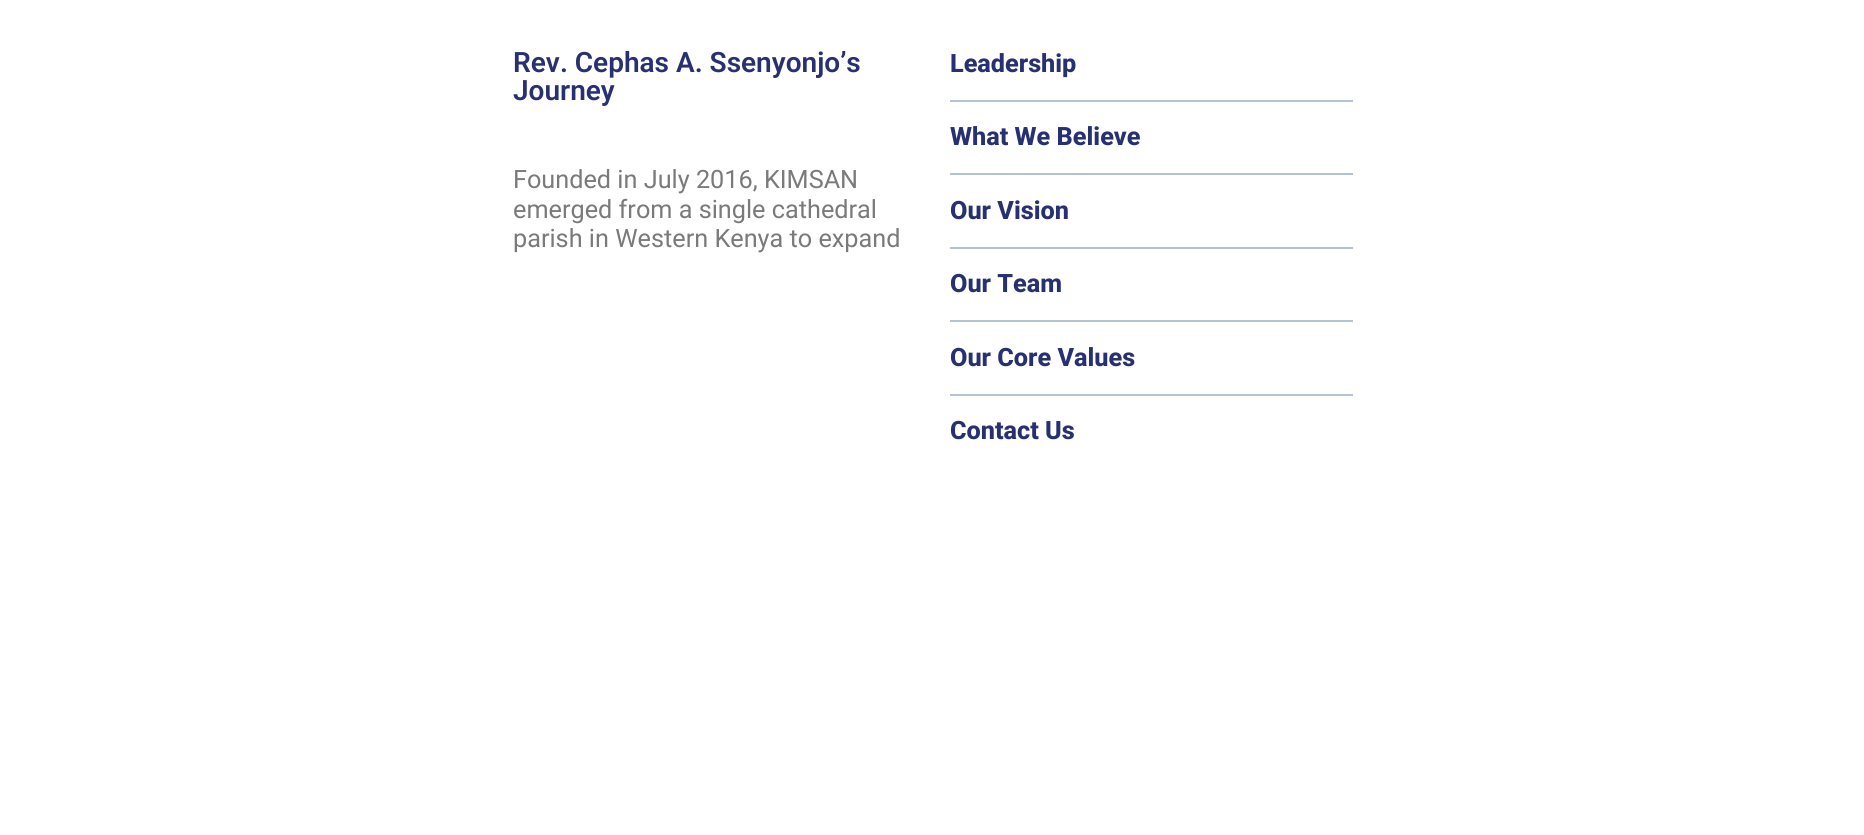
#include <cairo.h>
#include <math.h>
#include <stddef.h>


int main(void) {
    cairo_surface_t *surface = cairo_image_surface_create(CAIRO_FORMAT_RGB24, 1864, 835);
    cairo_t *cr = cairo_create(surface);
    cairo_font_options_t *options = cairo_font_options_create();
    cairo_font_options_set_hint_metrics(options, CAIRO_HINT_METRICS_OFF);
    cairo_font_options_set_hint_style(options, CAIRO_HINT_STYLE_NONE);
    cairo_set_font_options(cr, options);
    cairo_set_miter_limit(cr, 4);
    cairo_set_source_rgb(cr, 1, 1, 1);
    cairo_paint(cr);
    cairo_select_font_face(cr, "Roboto SemiBold", CAIRO_FONT_SLANT_NORMAL, CAIRO_FONT_WEIGHT_NORMAL);
    cairo_set_font_size(cr, 28);
    cairo_set_source_rgb(cr, 0.153, 0.192, 0.443);
    cairo_move_to(cr, 513, 72);
    cairo_show_text(cr, "Rev. Cephas A. Ssenyonjo’s");
    cairo_move_to(cr, 513, 100);
    cairo_show_text(cr, "Journey");
    cairo_select_font_face(cr, "Roboto", CAIRO_FONT_SLANT_NORMAL, CAIRO_FONT_WEIGHT_NORMAL);
    cairo_set_font_size(cr, 25.25);
    cairo_set_source_rgb(cr, 0.478, 0.478, 0.478);
    cairo_move_to(cr, 513, 188);
    cairo_show_text(cr, "Founded in July 2016, KIMSAN");
    cairo_move_to(cr, 513, 218);
    cairo_show_text(cr, "emerged from a single cathedral");
    cairo_move_to(cr, 513, 247);
    cairo_show_text(cr, "parish in Western Kenya to expand");
    cairo_select_font_face(cr, "Roboto ExtraBold", CAIRO_FONT_SLANT_NORMAL, CAIRO_FONT_WEIGHT_NORMAL);
    cairo_set_source_rgb(cr, 0.153, 0.192, 0.443);
    cairo_move_to(cr, 950, 72);
    cairo_show_text(cr, "Leadership");
    cairo_set_source_rgb(cr, 0.71, 0.765, 0.82);
    cairo_rectangle(cr, 950, 100, 403, 2);
    cairo_fill(cr);
    cairo_set_source_rgb(cr, 0.153, 0.192, 0.443);
    cairo_move_to(cr, 950, 145);
    cairo_show_text(cr, "What We Believe");
    cairo_set_source_rgb(cr, 0.71, 0.765, 0.82);
    cairo_rectangle(cr, 950, 173, 403, 2);
    cairo_fill(cr);
    cairo_set_source_rgb(cr, 0.153, 0.192, 0.443);
    cairo_move_to(cr, 950, 219);
    cairo_show_text(cr, "Our Vision");
    cairo_set_source_rgb(cr, 0.71, 0.765, 0.82);
    cairo_rectangle(cr, 950, 247, 403, 2);
    cairo_fill(cr);
    cairo_set_source_rgb(cr, 0.153, 0.192, 0.443);
    cairo_move_to(cr, 950, 292);
    cairo_show_text(cr, "Our Team");
    cairo_set_source_rgb(cr, 0.71, 0.765, 0.82);
    cairo_rectangle(cr, 950, 320, 403, 2);
    cairo_fill(cr);
    cairo_set_source_rgb(cr, 0.153, 0.192, 0.443);
    cairo_move_to(cr, 950, 366);
    cairo_show_text(cr, "Our Core Values");
    cairo_set_source_rgb(cr, 0.71, 0.765, 0.82);
    cairo_rectangle(cr, 950, 394, 403, 2);
    cairo_fill(cr);
    cairo_set_source_rgb(cr, 0.153, 0.192, 0.443);
    cairo_move_to(cr, 950, 439);
    cairo_show_text(cr, "Contact Us");
    cairo_surface_write_to_png(surface, "page.png");
    cairo_font_options_destroy(options);
    cairo_destroy(cr);
    cairo_surface_destroy(surface);
    return 0;
}
